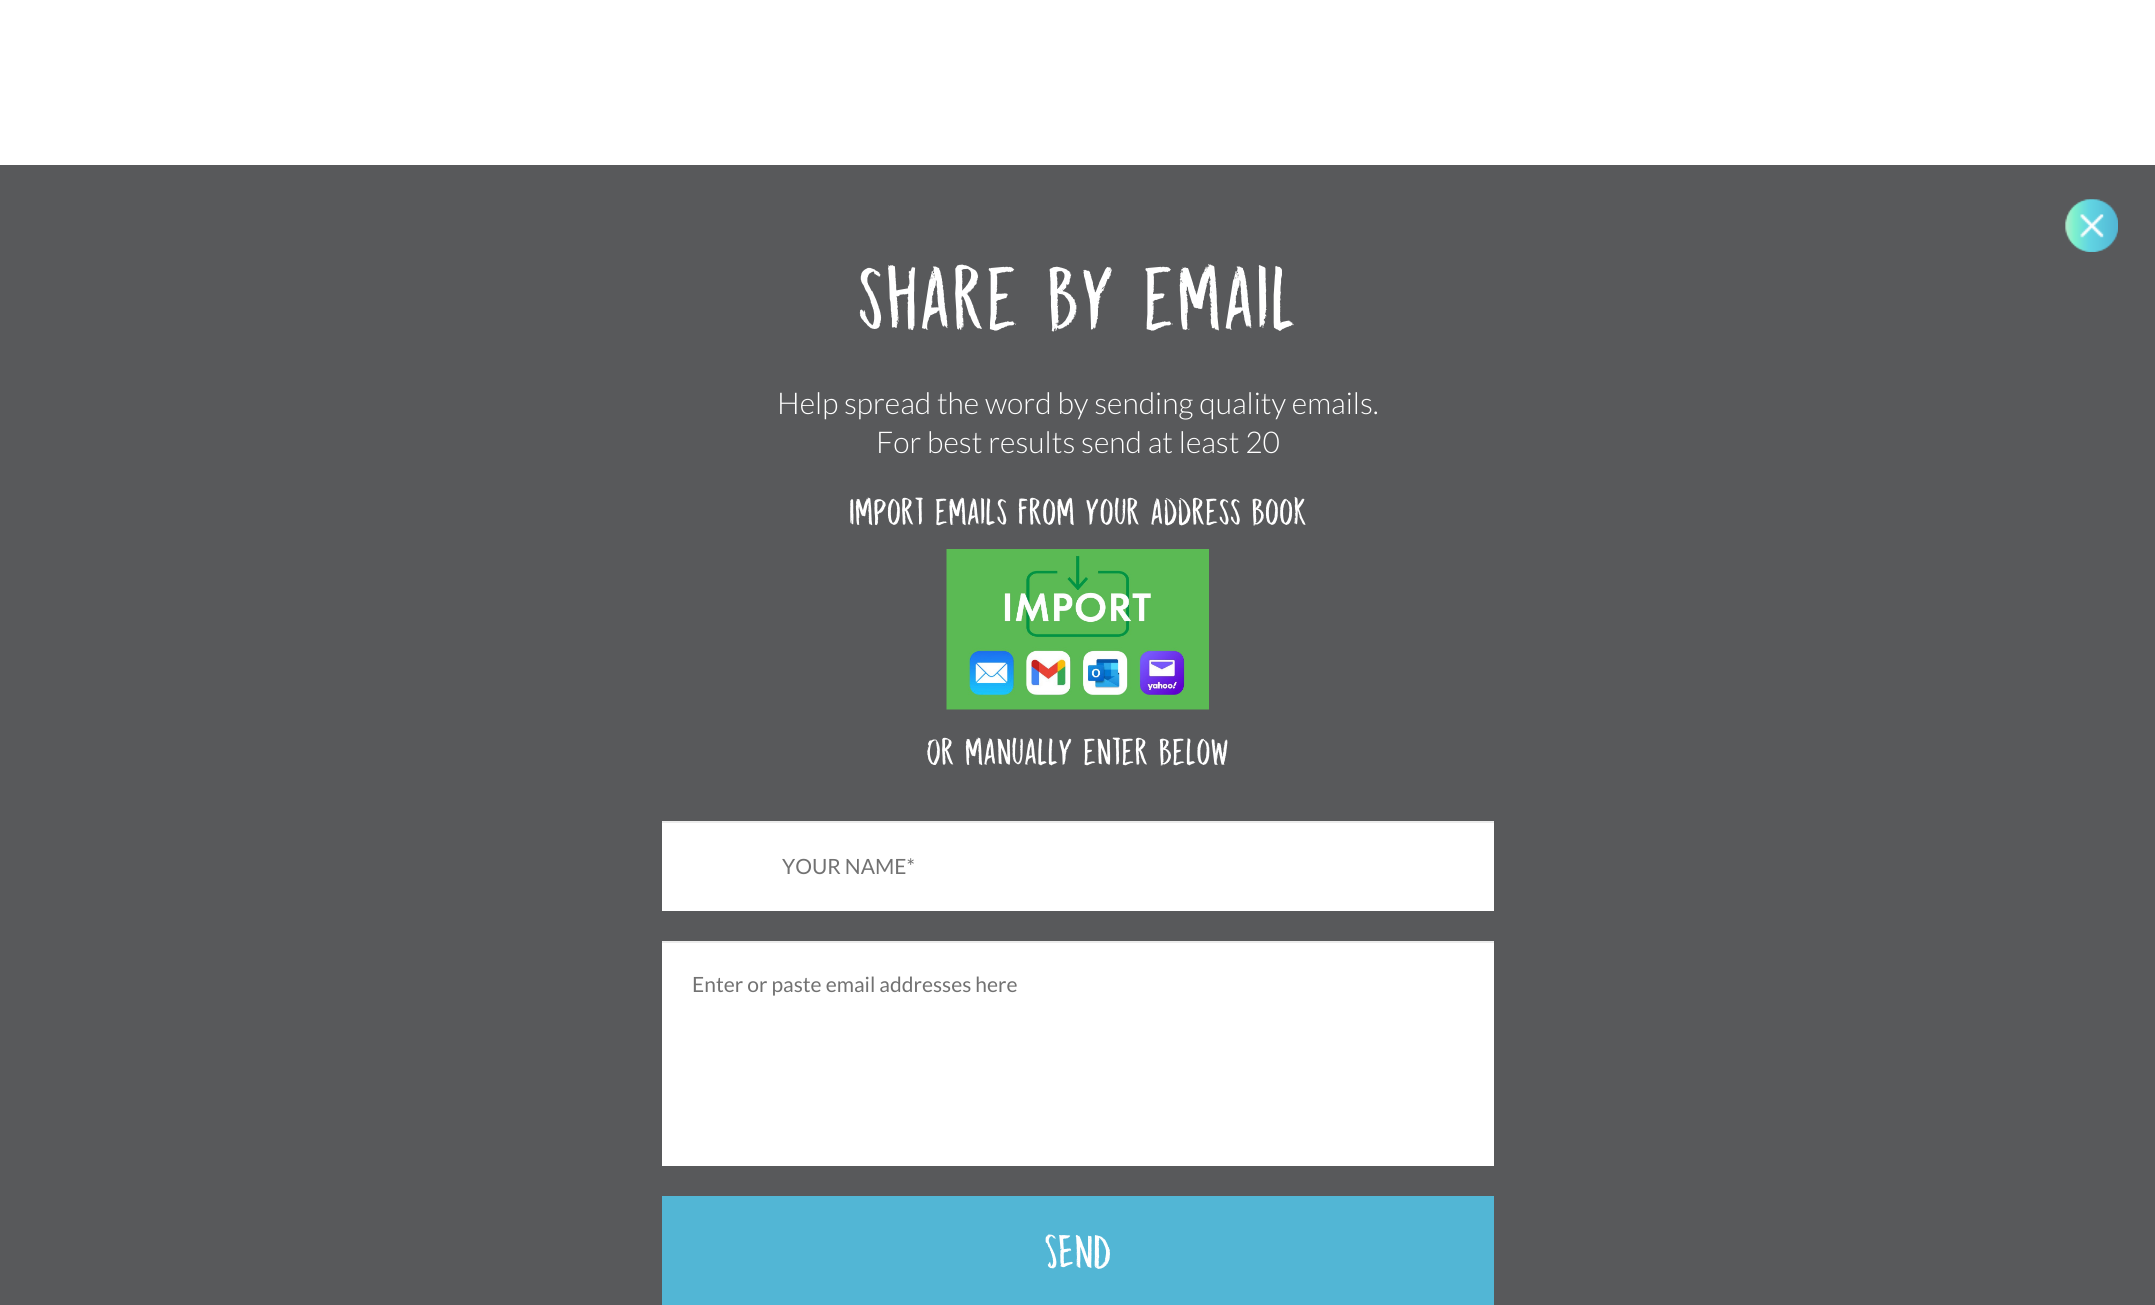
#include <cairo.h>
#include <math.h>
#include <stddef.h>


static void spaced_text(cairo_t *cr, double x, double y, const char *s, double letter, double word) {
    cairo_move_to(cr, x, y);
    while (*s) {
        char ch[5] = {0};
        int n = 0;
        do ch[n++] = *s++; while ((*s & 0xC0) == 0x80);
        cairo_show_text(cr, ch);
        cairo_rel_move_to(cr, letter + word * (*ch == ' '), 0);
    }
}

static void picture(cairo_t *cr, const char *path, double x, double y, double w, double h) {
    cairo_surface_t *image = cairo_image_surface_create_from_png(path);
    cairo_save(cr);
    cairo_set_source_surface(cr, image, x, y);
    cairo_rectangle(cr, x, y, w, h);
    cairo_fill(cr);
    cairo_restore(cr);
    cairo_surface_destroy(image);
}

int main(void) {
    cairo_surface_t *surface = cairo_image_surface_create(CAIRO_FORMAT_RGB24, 2155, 1305);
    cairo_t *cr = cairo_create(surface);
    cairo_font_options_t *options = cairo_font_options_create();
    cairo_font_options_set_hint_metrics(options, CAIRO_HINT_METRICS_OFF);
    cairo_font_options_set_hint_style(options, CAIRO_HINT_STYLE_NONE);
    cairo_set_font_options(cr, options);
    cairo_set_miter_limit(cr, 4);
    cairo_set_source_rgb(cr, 1, 1, 1);
    cairo_paint(cr);
    cairo_set_source_rgb(cr, 0.345, 0.349, 0.357);
    cairo_rectangle(cr, 0, 165, 2155, 1140);
    cairo_fill(cr);
    picture(cr, "img1.png", 2065, 199, 53, 53);
    picture(cr, "img2.png", 2065, 199, 53, 53);
    cairo_select_font_face(cr, "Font", CAIRO_FONT_SLANT_NORMAL, CAIRO_FONT_WEIGHT_NORMAL);
    cairo_set_font_size(cr, 90);
    cairo_set_source_rgb(cr, 1, 1, 1);
    spaced_text(cr, 857, 330, "share by email", 1.5, 0);
    cairo_select_font_face(cr, "Lato Light", CAIRO_FONT_SLANT_NORMAL, CAIRO_FONT_WEIGHT_NORMAL);
    cairo_set_font_size(cr, 30);
    cairo_move_to(cr, 777, 414);
    cairo_show_text(cr, "Help spread the word by sending quality emails.");
    cairo_move_to(cr, 876, 453);
    cairo_show_text(cr, "For best results send at least 20");
    cairo_select_font_face(cr, "Font", CAIRO_FONT_SLANT_NORMAL, CAIRO_FONT_WEIGHT_NORMAL);
    cairo_set_font_size(cr, 37.5);
    cairo_move_to(cr, 849, 525);
    cairo_show_text(cr, "Import emails from your address book");
    picture(cr, "img3.png", 946, 549, 263, 161);
    cairo_move_to(cr, 926, 765);
    cairo_show_text(cr, "Or manually enter below");
    cairo_rectangle(cr, 662, 823, 832, 88);
    cairo_fill(cr);
    cairo_set_source_rgb(cr, 0.925, 0.925, 0.925);
    cairo_rectangle(cr, 662, 821, 832, 2);
    cairo_fill(cr);
    cairo_select_font_face(cr, "Lato", CAIRO_FONT_SLANT_NORMAL, CAIRO_FONT_WEIGHT_NORMAL);
    cairo_set_font_size(cr, 21);
    cairo_set_source_rgb(cr, 0.447, 0.447, 0.447);
    cairo_move_to(cr, 782, 874);
    cairo_show_text(cr, "YOUR NAME*");
    cairo_set_source_rgb(cr, 1, 1, 1);
    cairo_rectangle(cr, 662, 943, 832, 223);
    cairo_fill(cr);
    cairo_set_source_rgb(cr, 0.925, 0.925, 0.925);
    cairo_rectangle(cr, 662, 941, 832, 2);
    cairo_fill(cr);
    cairo_set_source_rgb(cr, 0.447, 0.447, 0.447);
    cairo_move_to(cr, 692, 992);
    cairo_show_text(cr, "Enter or paste email addresses here");
    cairo_set_source_rgb(cr, 0.322, 0.714, 0.835);
    cairo_rectangle(cr, 662, 1196, 832, 109);
    cairo_fill(cr);
    cairo_select_font_face(cr, "Font", CAIRO_FONT_SLANT_NORMAL, CAIRO_FONT_WEIGHT_NORMAL);
    cairo_set_font_size(cr, 48);
    cairo_set_source_rgb(cr, 1, 1, 1);
    cairo_move_to(cr, 1044, 1268);
    cairo_show_text(cr, "SEND");
    cairo_surface_write_to_png(surface, "page.png");
    cairo_font_options_destroy(options);
    cairo_destroy(cr);
    cairo_surface_destroy(surface);
    return 0;
}
